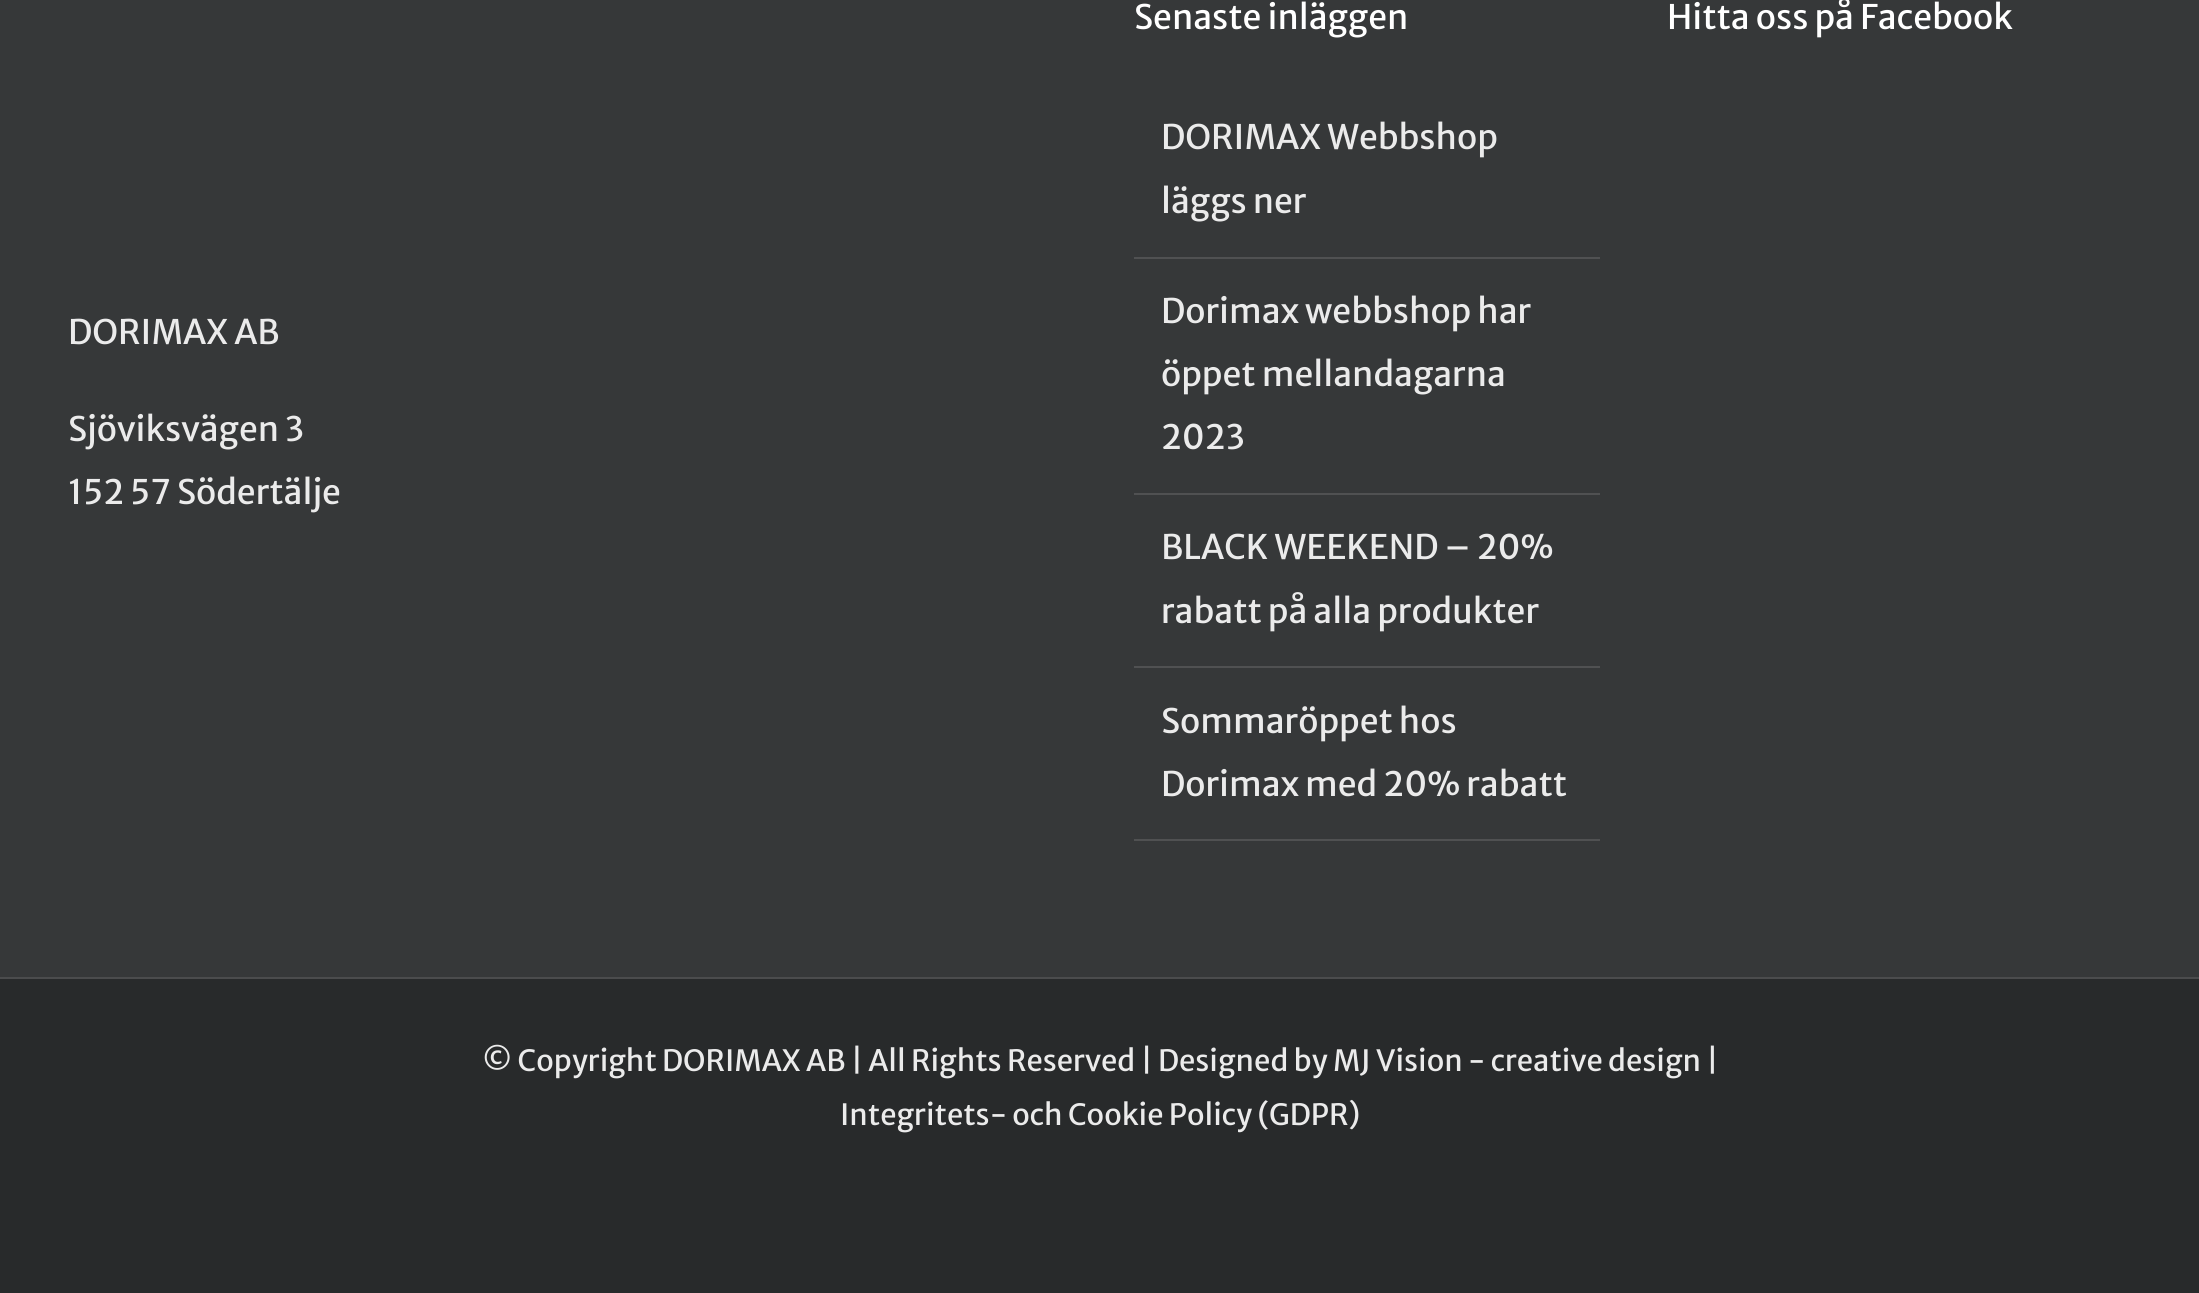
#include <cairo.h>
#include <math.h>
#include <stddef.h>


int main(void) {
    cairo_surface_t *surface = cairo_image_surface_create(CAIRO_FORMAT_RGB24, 2199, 1293);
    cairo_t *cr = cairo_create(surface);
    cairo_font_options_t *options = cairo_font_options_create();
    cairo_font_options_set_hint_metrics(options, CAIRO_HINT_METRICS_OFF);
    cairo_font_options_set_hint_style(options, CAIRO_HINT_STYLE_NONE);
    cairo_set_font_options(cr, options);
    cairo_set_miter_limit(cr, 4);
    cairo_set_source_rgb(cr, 0.212, 0.22, 0.224);
    cairo_paint(cr);
    cairo_select_font_face(cr, "Merriweather Sans", CAIRO_FONT_SLANT_NORMAL, CAIRO_FONT_WEIGHT_NORMAL);
    cairo_set_font_size(cr, 33.75);
    cairo_set_source_rgb(cr, 0.918, 0.918, 0.918);
    cairo_move_to(cr, 68, 344);
    cairo_show_text(cr, "DORIMAX AB");
    cairo_move_to(cr, 68, 441);
    cairo_show_text(cr, "Sjöviksvägen 3");
    cairo_move_to(cr, 68, 504);
    cairo_show_text(cr, "152 57 Södertälje");
    cairo_set_source_rgb(cr, 1, 1, 1);
    cairo_move_to(cr, 1134, 29);
    cairo_show_text(cr, "Senaste inläggen");
    cairo_set_source_rgb(cr, 0.314, 0.318, 0.322);
    cairo_rectangle(cr, 1134, 257, 466, 2);
    cairo_fill(cr);
    cairo_set_source_rgb(cr, 0.918, 0.918, 0.918);
    cairo_move_to(cr, 1161, 149);
    cairo_show_text(cr, "DORIMAX Webbshop");
    cairo_move_to(cr, 1161, 213);
    cairo_show_text(cr, "läggs ner");
    cairo_set_source_rgb(cr, 0.314, 0.318, 0.322);
    cairo_rectangle(cr, 1134, 493, 466, 2);
    cairo_fill(cr);
    cairo_set_source_rgb(cr, 0.918, 0.918, 0.918);
    cairo_move_to(cr, 1161, 323);
    cairo_show_text(cr, "Dorimax webbshop har");
    cairo_move_to(cr, 1161, 386);
    cairo_show_text(cr, "öppet mellandagarna");
    cairo_move_to(cr, 1161, 449);
    cairo_show_text(cr, "2023");
    cairo_set_source_rgb(cr, 0.314, 0.318, 0.322);
    cairo_rectangle(cr, 1134, 666, 466, 2);
    cairo_fill(cr);
    cairo_set_source_rgb(cr, 0.918, 0.918, 0.918);
    cairo_move_to(cr, 1161, 559);
    cairo_show_text(cr, "BLACK WEEKEND – 20%");
    cairo_move_to(cr, 1161, 623);
    cairo_show_text(cr, "rabatt på alla produkter");
    cairo_set_source_rgb(cr, 0.314, 0.318, 0.322);
    cairo_rectangle(cr, 1134, 839, 466, 2);
    cairo_fill(cr);
    cairo_set_source_rgb(cr, 0.918, 0.918, 0.918);
    cairo_move_to(cr, 1161, 733);
    cairo_show_text(cr, "Sommaröppet hos");
    cairo_move_to(cr, 1161, 796);
    cairo_show_text(cr, "Dorimax med 20% rabatt");
    cairo_set_source_rgb(cr, 1, 1, 1);
    cairo_move_to(cr, 1667, 29);
    cairo_show_text(cr, "Hitta oss på Facebook");
    cairo_set_source_rgb(cr, 0.157, 0.165, 0.169);
    cairo_rectangle(cr, 0, 979, 2199, 314);
    cairo_fill(cr);
    cairo_set_source_rgb(cr, 0.294, 0.298, 0.302);
    cairo_rectangle(cr, 0, 977, 2199, 2);
    cairo_fill(cr);
    cairo_set_font_size(cr, 29.25);
    cairo_set_source_rgb(cr, 0.918, 0.918, 0.918);
    cairo_move_to(cr, 482, 1071);
    cairo_show_text(cr, "© Copyright DORIMAX AB | All Rights Reserved | Designed by MJ Vision - creative design |");
    cairo_move_to(cr, 840, 1125);
    cairo_show_text(cr, "Integritets- och Cookie Policy (GDPR)");
    cairo_surface_write_to_png(surface, "page.png");
    cairo_font_options_destroy(options);
    cairo_destroy(cr);
    cairo_surface_destroy(surface);
    return 0;
}
